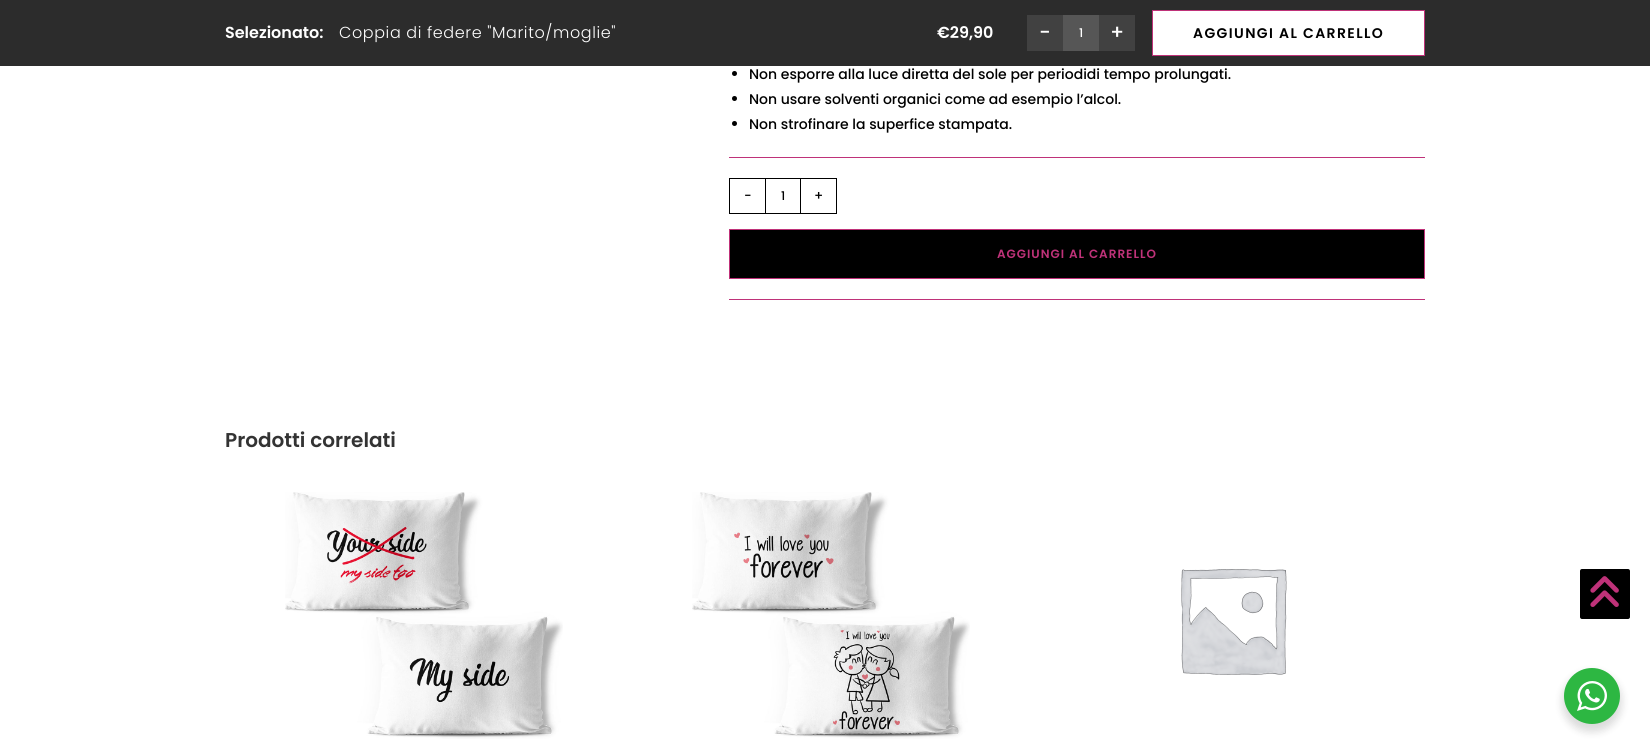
#include <cairo.h>
#include <math.h>
#include <stddef.h>


static void spaced_text(cairo_t *cr, double x, double y, const char *s, double letter, double word) {
    cairo_move_to(cr, x, y);
    while (*s) {
        char ch[5] = {0};
        int n = 0;
        do ch[n++] = *s++; while ((*s & 0xC0) == 0x80);
        cairo_show_text(cr, ch);
        cairo_rel_move_to(cr, letter + word * (*ch == ' '), 0);
    }
}

static void round_rect(cairo_t *cr, double x, double y, double w, double h, double r) {
    cairo_new_sub_path(cr);
    cairo_arc(cr, x + w - r, y + h - r, r, 0, M_PI / 2);
    cairo_arc(cr, x + r, y + h - r, r, M_PI / 2, M_PI);
    cairo_arc(cr, x + r, y + r, r, M_PI, 1.5 * M_PI);
    cairo_arc(cr, x + w - r, y + r, r, 1.5 * M_PI, 2 * M_PI);
    cairo_close_path(cr);
}

static void shadow(cairo_t *cr, double x, double y, double w, double h, double r, double blur, double alpha) {
    cairo_push_group_with_content(cr, CAIRO_CONTENT_ALPHA);
    cairo_set_operator(cr, CAIRO_OPERATOR_SOURCE);
    for (int i = 15; i >= -15 && fmin(w, h) + blur * i / 3 > 0; i -= 2) {
        double e = blur * i / 6;
        cairo_set_source_rgba(cr, 0, 0, 0, alpha * erfc((i - 1) / 8.5) / 2);
        round_rect(cr, x - e, y - e, w + 2 * e, h + 2 * e, fmax(0, fmin(r + e + blur * .6, fmin(w, h) / 2 + e)));
        cairo_fill(cr);
    }
    cairo_pattern_t *soft = cairo_pop_group(cr);
    cairo_mask(cr, soft);
    cairo_pattern_destroy(soft);
}

static void picture(cairo_t *cr, const char *path, double x, double y, double w, double h) {
    cairo_surface_t *image = cairo_image_surface_create_from_png(path);
    cairo_save(cr);
    cairo_set_source_surface(cr, image, x, y);
    cairo_rectangle(cr, x, y, w, h);
    cairo_fill(cr);
    cairo_restore(cr);
    cairo_surface_destroy(image);
}

int main(void) {
    cairo_surface_t *surface = cairo_image_surface_create(CAIRO_FORMAT_RGB24, 1650, 754);
    cairo_t *cr = cairo_create(surface);
    cairo_font_options_t *options = cairo_font_options_create();
    cairo_font_options_set_hint_metrics(options, CAIRO_HINT_METRICS_OFF);
    cairo_font_options_set_hint_style(options, CAIRO_HINT_STYLE_NONE);
    cairo_set_font_options(cr, options);
    cairo_set_miter_limit(cr, 4);
    cairo_set_source_rgb(cr, 1, 1, 1);
    cairo_paint(cr);
    cairo_set_source_rgb(cr, 0.173, 0.173, 0.173);
    cairo_rectangle(cr, 0, 0, 1650, 66);
    cairo_fill(cr);
    cairo_select_font_face(cr, "Poppins SemiBold", CAIRO_FONT_SLANT_NORMAL, CAIRO_FONT_WEIGHT_NORMAL);
    cairo_set_font_size(cr, 16);
    cairo_set_source_rgb(cr, 1, 1, 1);
    cairo_move_to(cr, 225, 38);
    cairo_show_text(cr, "Selezionato:");
    cairo_select_font_face(cr, "Poppins Light", CAIRO_FONT_SLANT_NORMAL, CAIRO_FONT_WEIGHT_NORMAL);
    spaced_text(cr, 339, 38, "Coppia di federe \"Marito/moglie\"", 0.6, 0);
    cairo_select_font_face(cr, "Poppins SemiBold", CAIRO_FONT_SLANT_NORMAL, CAIRO_FONT_WEIGHT_NORMAL);
    cairo_move_to(cr, 937, 38);
    cairo_show_text(cr, "€29,90");
    cairo_set_source_rgb(cr, 0.255, 0.255, 0.255);
    cairo_rectangle(cr, 1027, 15, 36, 36);
    cairo_fill(cr);
    cairo_select_font_face(cr, "Poppins Medium", CAIRO_FONT_SLANT_NORMAL, CAIRO_FONT_WEIGHT_NORMAL);
    cairo_set_font_size(cr, 20);
    cairo_set_source_rgb(cr, 1, 1, 1);
    cairo_move_to(cr, 1039, 39);
    cairo_show_text(cr, "-");
    cairo_set_source_rgb(cr, 0.337, 0.337, 0.337);
    cairo_rectangle(cr, 1063, 15, 36, 36);
    cairo_fill(cr);
    cairo_set_font_size(cr, 12);
    cairo_set_source_rgb(cr, 1, 1, 1);
    cairo_move_to(cr, 1079, 37);
    cairo_show_text(cr, "1");
    cairo_set_source_rgb(cr, 0.255, 0.255, 0.255);
    cairo_rectangle(cr, 1099, 15, 36, 36);
    cairo_fill(cr);
    cairo_set_font_size(cr, 20);
    cairo_set_source_rgb(cr, 1, 1, 1);
    cairo_move_to(cr, 1110, 39);
    cairo_show_text(cr, "+");
    cairo_rectangle(cr, 1152.5, 10.5, 272, 45);
    cairo_fill_preserve(cr);
    cairo_set_source_rgb(cr, 0.749, 0.196, 0.475);
    cairo_set_line_width(cr, 1);
    cairo_stroke(cr);
    cairo_select_font_face(cr, "Poppins SemiBold", CAIRO_FONT_SLANT_NORMAL, CAIRO_FONT_WEIGHT_NORMAL);
    cairo_set_font_size(cr, 14);
    cairo_set_source_rgb(cr, 0, 0, 0);
    spaced_text(cr, 1193, 38, "AGGIUNGI AL CARRELLO", 1.4, 0);
    cairo_new_path(cr);
    cairo_arc(cr, 734.5, 73.5, 2.5, 0, 2 * M_PI);
    cairo_fill(cr);
    cairo_select_font_face(cr, "Poppins Medium", CAIRO_FONT_SLANT_NORMAL, CAIRO_FONT_WEIGHT_NORMAL);
    cairo_move_to(cr, 749, 79);
    cairo_show_text(cr, "Non esporre alla luce diretta del sole per periodidi tempo prolungati.");
    cairo_new_path(cr);
    cairo_arc(cr, 734.5, 98.5, 2.5, 0, 2 * M_PI);
    cairo_fill(cr);
    cairo_move_to(cr, 749, 104);
    cairo_show_text(cr, "Non usare solventi organici come ad esempio l’alcol.");
    cairo_new_path(cr);
    cairo_arc(cr, 734.5, 123.5, 2.5, 0, 2 * M_PI);
    cairo_fill(cr);
    cairo_move_to(cr, 749, 129);
    cairo_show_text(cr, "Non strofinare la superfice stampata.");
    cairo_set_source_rgb(cr, 0.749, 0.196, 0.475);
    cairo_rectangle(cr, 729, 157, 696, 1);
    cairo_fill(cr);
    cairo_rectangle(cr, 729, 299, 696, 1);
    cairo_fill(cr);
    cairo_set_source_rgb(cr, 0, 0, 0);
    cairo_rectangle(cr, 729, 178, 36, 1);
    cairo_fill(cr);
    cairo_rectangle(cr, 729, 213, 36, 1);
    cairo_fill(cr);
    cairo_rectangle(cr, 729, 178, 1, 36);
    cairo_fill(cr);
    cairo_set_font_size(cr, 13);
    cairo_move_to(cr, 744, 200);
    cairo_show_text(cr, "-");
    cairo_rectangle(cr, 765.5, 178.5, 35, 35);
    cairo_stroke(cr);
    cairo_set_font_size(cr, 12);
    cairo_move_to(cr, 781, 200);
    cairo_show_text(cr, "1");
    cairo_rectangle(cr, 801, 178, 36, 1);
    cairo_fill(cr);
    cairo_rectangle(cr, 836, 178, 1, 36);
    cairo_fill(cr);
    cairo_rectangle(cr, 801, 213, 36, 1);
    cairo_fill(cr);
    cairo_set_font_size(cr, 13);
    cairo_move_to(cr, 814, 200);
    cairo_show_text(cr, "+");
    cairo_rectangle(cr, 729.5, 229.5, 695, 49);
    cairo_fill_preserve(cr);
    cairo_set_source_rgb(cr, 0.749, 0.196, 0.475);
    cairo_stroke(cr);
    cairo_select_font_face(cr, "Poppins SemiBold", CAIRO_FONT_SLANT_NORMAL, CAIRO_FONT_WEIGHT_NORMAL);
    cairo_set_font_size(cr, 12);
    spaced_text(cr, 997, 258, "AGGIUNGI AL CARRELLO", 1, 0);
    cairo_set_font_size(cr, 20);
    cairo_set_source_rgb(cr, 0.2, 0.2, 0.2);
    cairo_move_to(cr, 225, 447);
    cairo_show_text(cr, "Prodotti correlati");
    picture(cr, "img1.png", 285, 492, 278, 247);
    picture(cr, "img2.png", 692, 492, 278, 247);
    picture(cr, "img3.png", 1181, 569, 106, 106);
    cairo_set_source_rgb(cr, 0, 0, 0);
    round_rect(cr, 1580, 569, 50, 50, 2);
    cairo_fill(cr);
    picture(cr, "img4.png", 1590, 576, 29, 31);
    cairo_set_source_rgb(cr, 0, 0, 0);
    shadow(cr, 1562, 672, 60, 60, 30, 4, 0.14);
    cairo_set_source_rgb(cr, 0.176, 0.718, 0.259);
    cairo_arc(cr, 1592, 696, 28, 0, 2 * M_PI);
    cairo_fill(cr);
    picture(cr, "img5.png", 1577, 681, 30, 30);
    cairo_surface_write_to_png(surface, "page.png");
    cairo_font_options_destroy(options);
    cairo_destroy(cr);
    cairo_surface_destroy(surface);
    return 0;
}
